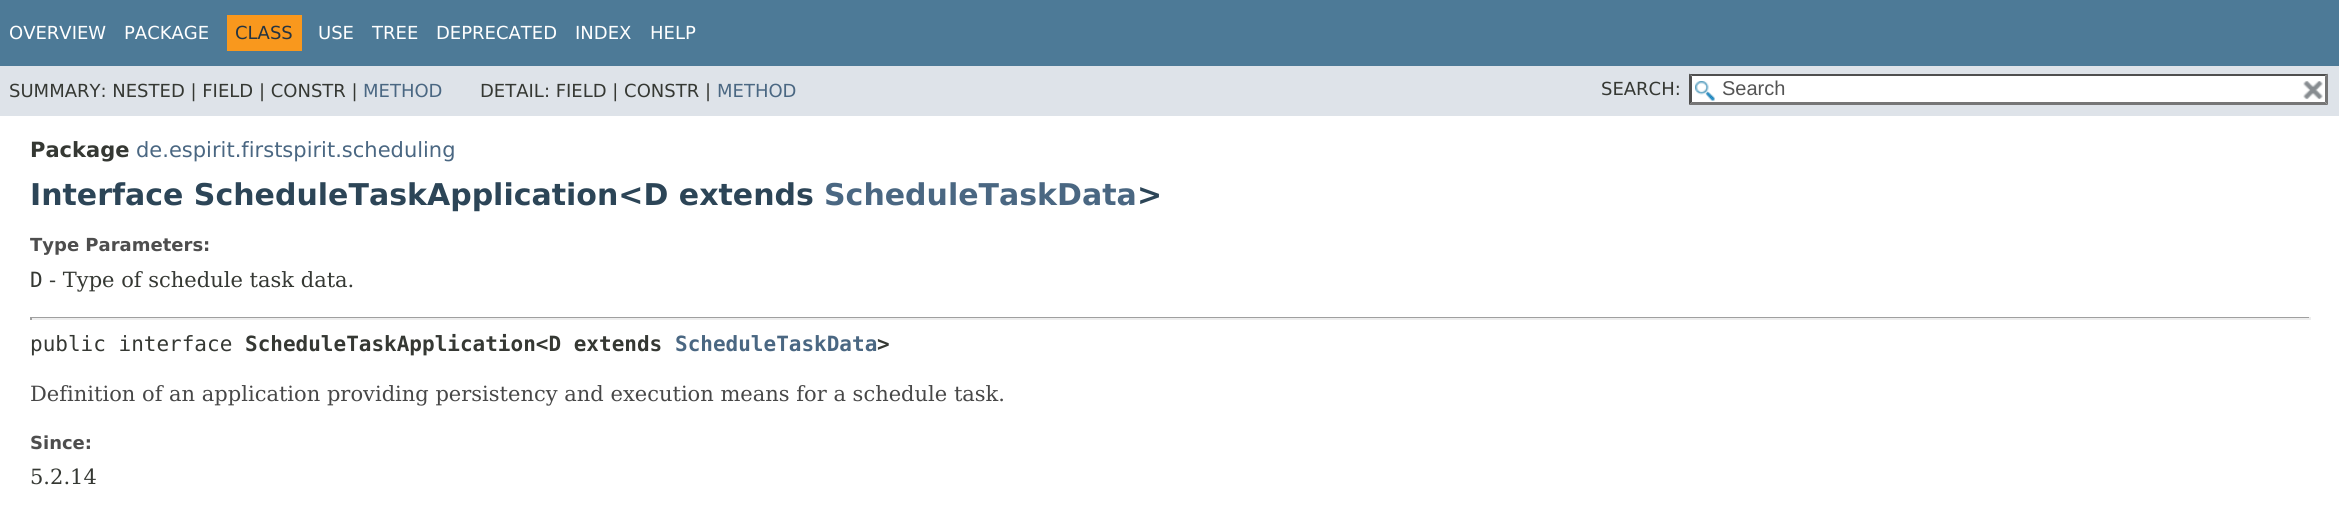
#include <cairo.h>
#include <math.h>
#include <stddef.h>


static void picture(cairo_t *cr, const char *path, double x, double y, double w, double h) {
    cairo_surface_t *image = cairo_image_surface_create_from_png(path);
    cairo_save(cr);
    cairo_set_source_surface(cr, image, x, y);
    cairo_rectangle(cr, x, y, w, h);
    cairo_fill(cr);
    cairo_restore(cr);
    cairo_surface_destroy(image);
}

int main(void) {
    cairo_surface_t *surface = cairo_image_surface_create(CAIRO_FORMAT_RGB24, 2339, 514);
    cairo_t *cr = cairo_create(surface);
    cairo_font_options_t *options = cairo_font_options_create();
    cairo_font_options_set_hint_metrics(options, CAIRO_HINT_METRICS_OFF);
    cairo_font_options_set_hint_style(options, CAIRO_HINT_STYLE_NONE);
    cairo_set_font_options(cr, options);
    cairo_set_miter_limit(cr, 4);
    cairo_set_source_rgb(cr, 1, 1, 1);
    cairo_paint(cr);
    cairo_set_source_rgb(cr, 0.302, 0.478, 0.592);
    cairo_rectangle(cr, 0, 0, 2339, 66);
    cairo_fill(cr);
    cairo_select_font_face(cr, "DejaVu Sans", CAIRO_FONT_SLANT_NORMAL, CAIRO_FONT_WEIGHT_NORMAL);
    cairo_set_font_size(cr, 18);
    cairo_set_source_rgb(cr, 1, 1, 1);
    cairo_move_to(cr, 9, 39);
    cairo_show_text(cr, "OVERVIEW");
    cairo_move_to(cr, 124, 39);
    cairo_show_text(cr, "PACKAGE");
    cairo_set_source_rgb(cr, 0.973, 0.596, 0.114);
    cairo_rectangle(cr, 227, 15, 75, 36);
    cairo_fill(cr);
    cairo_set_source_rgb(cr, 0.145, 0.204, 0.255);
    cairo_move_to(cr, 235, 39);
    cairo_show_text(cr, "CLASS");
    cairo_set_source_rgb(cr, 1, 1, 1);
    cairo_move_to(cr, 318, 39);
    cairo_show_text(cr, "USE");
    cairo_move_to(cr, 372, 39);
    cairo_show_text(cr, "TREE");
    cairo_move_to(cr, 436, 39);
    cairo_show_text(cr, "DEPRECATED");
    cairo_move_to(cr, 575, 39);
    cairo_show_text(cr, "INDEX");
    cairo_move_to(cr, 650, 39);
    cairo_show_text(cr, "HELP");
    cairo_set_source_rgb(cr, 0.871, 0.89, 0.914);
    cairo_rectangle(cr, 0, 66, 2339, 50);
    cairo_fill(cr);
    cairo_set_source_rgb(cr, 0.208, 0.22, 0.2);
    cairo_move_to(cr, 9, 97);
    cairo_show_text(cr, "SUMMARY: NESTED | FIELD | CONSTR |");
    cairo_set_source_rgb(cr, 0.29, 0.404, 0.51);
    cairo_move_to(cr, 363, 97);
    cairo_show_text(cr, "METHOD");
    cairo_set_source_rgb(cr, 0.208, 0.22, 0.2);
    cairo_move_to(cr, 480, 97);
    cairo_show_text(cr, "DETAIL: FIELD | CONSTR |");
    cairo_set_source_rgb(cr, 0.29, 0.404, 0.51);
    cairo_move_to(cr, 717, 97);
    cairo_show_text(cr, "METHOD");
    cairo_set_source_rgb(cr, 0.208, 0.22, 0.2);
    cairo_move_to(cr, 1601, 95);
    cairo_show_text(cr, "SEARCH:");
    cairo_set_source_rgb(cr, 1, 1, 1);
    cairo_rectangle(cr, 1689, 74, 639, 31);
    cairo_fill(cr);
    picture(cr, "img1.png", 1695, 81, 20, 20);
    cairo_set_source_rgb(cr, 0.31, 0.31, 0.31);
    cairo_new_path(cr);
    cairo_move_to(cr, 1689, 74);
    cairo_line_to(cr, 2328, 74);
    cairo_line_to(cr, 2325, 76);
    cairo_line_to(cr, 1692, 76);
    cairo_close_path(cr);
    cairo_fill(cr);
    cairo_set_source_rgb(cr, 0.463, 0.463, 0.463);
    cairo_new_path(cr);
    cairo_move_to(cr, 2328, 73.5);
    cairo_line_to(cr, 2328, 105);
    cairo_line_to(cr, 2325, 102);
    cairo_line_to(cr, 2325, 76.5);
    cairo_close_path(cr);
    cairo_fill(cr);
    cairo_new_path(cr);
    cairo_move_to(cr, 2328, 105);
    cairo_line_to(cr, 1689, 105);
    cairo_line_to(cr, 1692, 102);
    cairo_line_to(cr, 2325, 102);
    cairo_close_path(cr);
    cairo_fill(cr);
    cairo_set_source_rgb(cr, 0.31, 0.31, 0.31);
    cairo_new_path(cr);
    cairo_move_to(cr, 1689, 105);
    cairo_line_to(cr, 1689, 73.5);
    cairo_line_to(cr, 1692, 76.5);
    cairo_line_to(cr, 1692, 102);
    cairo_close_path(cr);
    cairo_fill(cr);
    cairo_select_font_face(cr, "Liberation Sans", CAIRO_FONT_SLANT_NORMAL, CAIRO_FONT_WEIGHT_NORMAL);
    cairo_set_font_size(cr, 20);
    cairo_set_source_rgb(cr, 0.329, 0.329, 0.329);
    cairo_move_to(cr, 1722, 95);
    cairo_show_text(cr, "Search");
    picture(cr, "img2.png", 2303, 81, 20, 19);
    cairo_select_font_face(cr, "DejaVu Sans", CAIRO_FONT_SLANT_NORMAL, CAIRO_FONT_WEIGHT_BOLD);
    cairo_set_font_size(cr, 21);
    cairo_set_source_rgb(cr, 0.208, 0.22, 0.2);
    cairo_move_to(cr, 30, 157);
    cairo_show_text(cr, "Package");
    cairo_select_font_face(cr, "DejaVu Sans", CAIRO_FONT_SLANT_NORMAL, CAIRO_FONT_WEIGHT_NORMAL);
    cairo_set_source_rgb(cr, 0.29, 0.404, 0.51);
    cairo_move_to(cr, 136, 157);
    cairo_show_text(cr, "de.espirit.firstspirit.scheduling");
    cairo_select_font_face(cr, "DejaVu Sans", CAIRO_FONT_SLANT_NORMAL, CAIRO_FONT_WEIGHT_BOLD);
    cairo_set_font_size(cr, 30);
    cairo_set_source_rgb(cr, 0.173, 0.271, 0.341);
    cairo_move_to(cr, 30, 205);
    cairo_show_text(cr, "Interface ScheduleTaskApplication<D extends");
    cairo_set_source_rgb(cr, 0.29, 0.404, 0.51);
    cairo_move_to(cr, 824, 205);
    cairo_show_text(cr, "ScheduleTaskData");
    cairo_set_source_rgb(cr, 0.173, 0.271, 0.341);
    cairo_move_to(cr, 1137, 205);
    cairo_show_text(cr, ">");
    cairo_set_font_size(cr, 18);
    cairo_set_source_rgb(cr, 0.306, 0.306, 0.306);
    cairo_move_to(cr, 30, 251);
    cairo_show_text(cr, "Type Parameters:");
    cairo_select_font_face(cr, "DejaVu Sans Mono", CAIRO_FONT_SLANT_NORMAL, CAIRO_FONT_WEIGHT_NORMAL);
    cairo_set_font_size(cr, 21);
    cairo_set_source_rgb(cr, 0.208, 0.22, 0.2);
    cairo_move_to(cr, 30, 287);
    cairo_show_text(cr, "D");
    cairo_select_font_face(cr, "DejaVu Serif", CAIRO_FONT_SLANT_NORMAL, CAIRO_FONT_WEIGHT_NORMAL);
    cairo_move_to(cr, 49, 287);
    cairo_show_text(cr, "- Type of schedule task data.");
    cairo_set_source_rgb(cr, 0.624, 0.624, 0.624);
    cairo_rectangle(cr, 30, 317, 2280, 1);
    cairo_fill(cr);
    cairo_set_source_rgb(cr, 0.933, 0.933, 0.933);
    cairo_rectangle(cr, 2309, 317, 2, 3);
    cairo_fill(cr);
    cairo_rectangle(cr, 30, 318, 2280, 2);
    cairo_fill(cr);
    cairo_set_source_rgb(cr, 0.624, 0.624, 0.624);
    cairo_rectangle(cr, 30, 317, 2, 3);
    cairo_fill(cr);
    cairo_select_font_face(cr, "DejaVu Sans Mono", CAIRO_FONT_SLANT_NORMAL, CAIRO_FONT_WEIGHT_NORMAL);
    cairo_set_source_rgb(cr, 0.208, 0.22, 0.2);
    cairo_move_to(cr, 30, 351);
    cairo_show_text(cr, "public interface");
    cairo_select_font_face(cr, "DejaVu Sans Mono", CAIRO_FONT_SLANT_NORMAL, CAIRO_FONT_WEIGHT_BOLD);
    cairo_move_to(cr, 245, 351);
    cairo_show_text(cr, "ScheduleTaskApplication<D extends");
    cairo_set_source_rgb(cr, 0.29, 0.404, 0.51);
    cairo_move_to(cr, 675, 351);
    cairo_show_text(cr, "ScheduleTaskData");
    cairo_set_source_rgb(cr, 0.208, 0.22, 0.2);
    cairo_move_to(cr, 877, 351);
    cairo_show_text(cr, ">");
    cairo_select_font_face(cr, "DejaVu Serif", CAIRO_FONT_SLANT_NORMAL, CAIRO_FONT_WEIGHT_NORMAL);
    cairo_set_source_rgb(cr, 0.278, 0.278, 0.278);
    cairo_move_to(cr, 30, 401);
    cairo_show_text(cr, "Definition of an application providing persistency and execution means for a schedule task.");
    cairo_select_font_face(cr, "DejaVu Sans", CAIRO_FONT_SLANT_NORMAL, CAIRO_FONT_WEIGHT_BOLD);
    cairo_set_font_size(cr, 18);
    cairo_set_source_rgb(cr, 0.306, 0.306, 0.306);
    cairo_move_to(cr, 30, 449);
    cairo_show_text(cr, "Since:");
    cairo_select_font_face(cr, "DejaVu Serif", CAIRO_FONT_SLANT_NORMAL, CAIRO_FONT_WEIGHT_NORMAL);
    cairo_set_font_size(cr, 21);
    cairo_set_source_rgb(cr, 0.208, 0.22, 0.2);
    cairo_move_to(cr, 30, 484);
    cairo_show_text(cr, "5.2.14");
    cairo_surface_write_to_png(surface, "page.png");
    cairo_font_options_destroy(options);
    cairo_destroy(cr);
    cairo_surface_destroy(surface);
    return 0;
}
